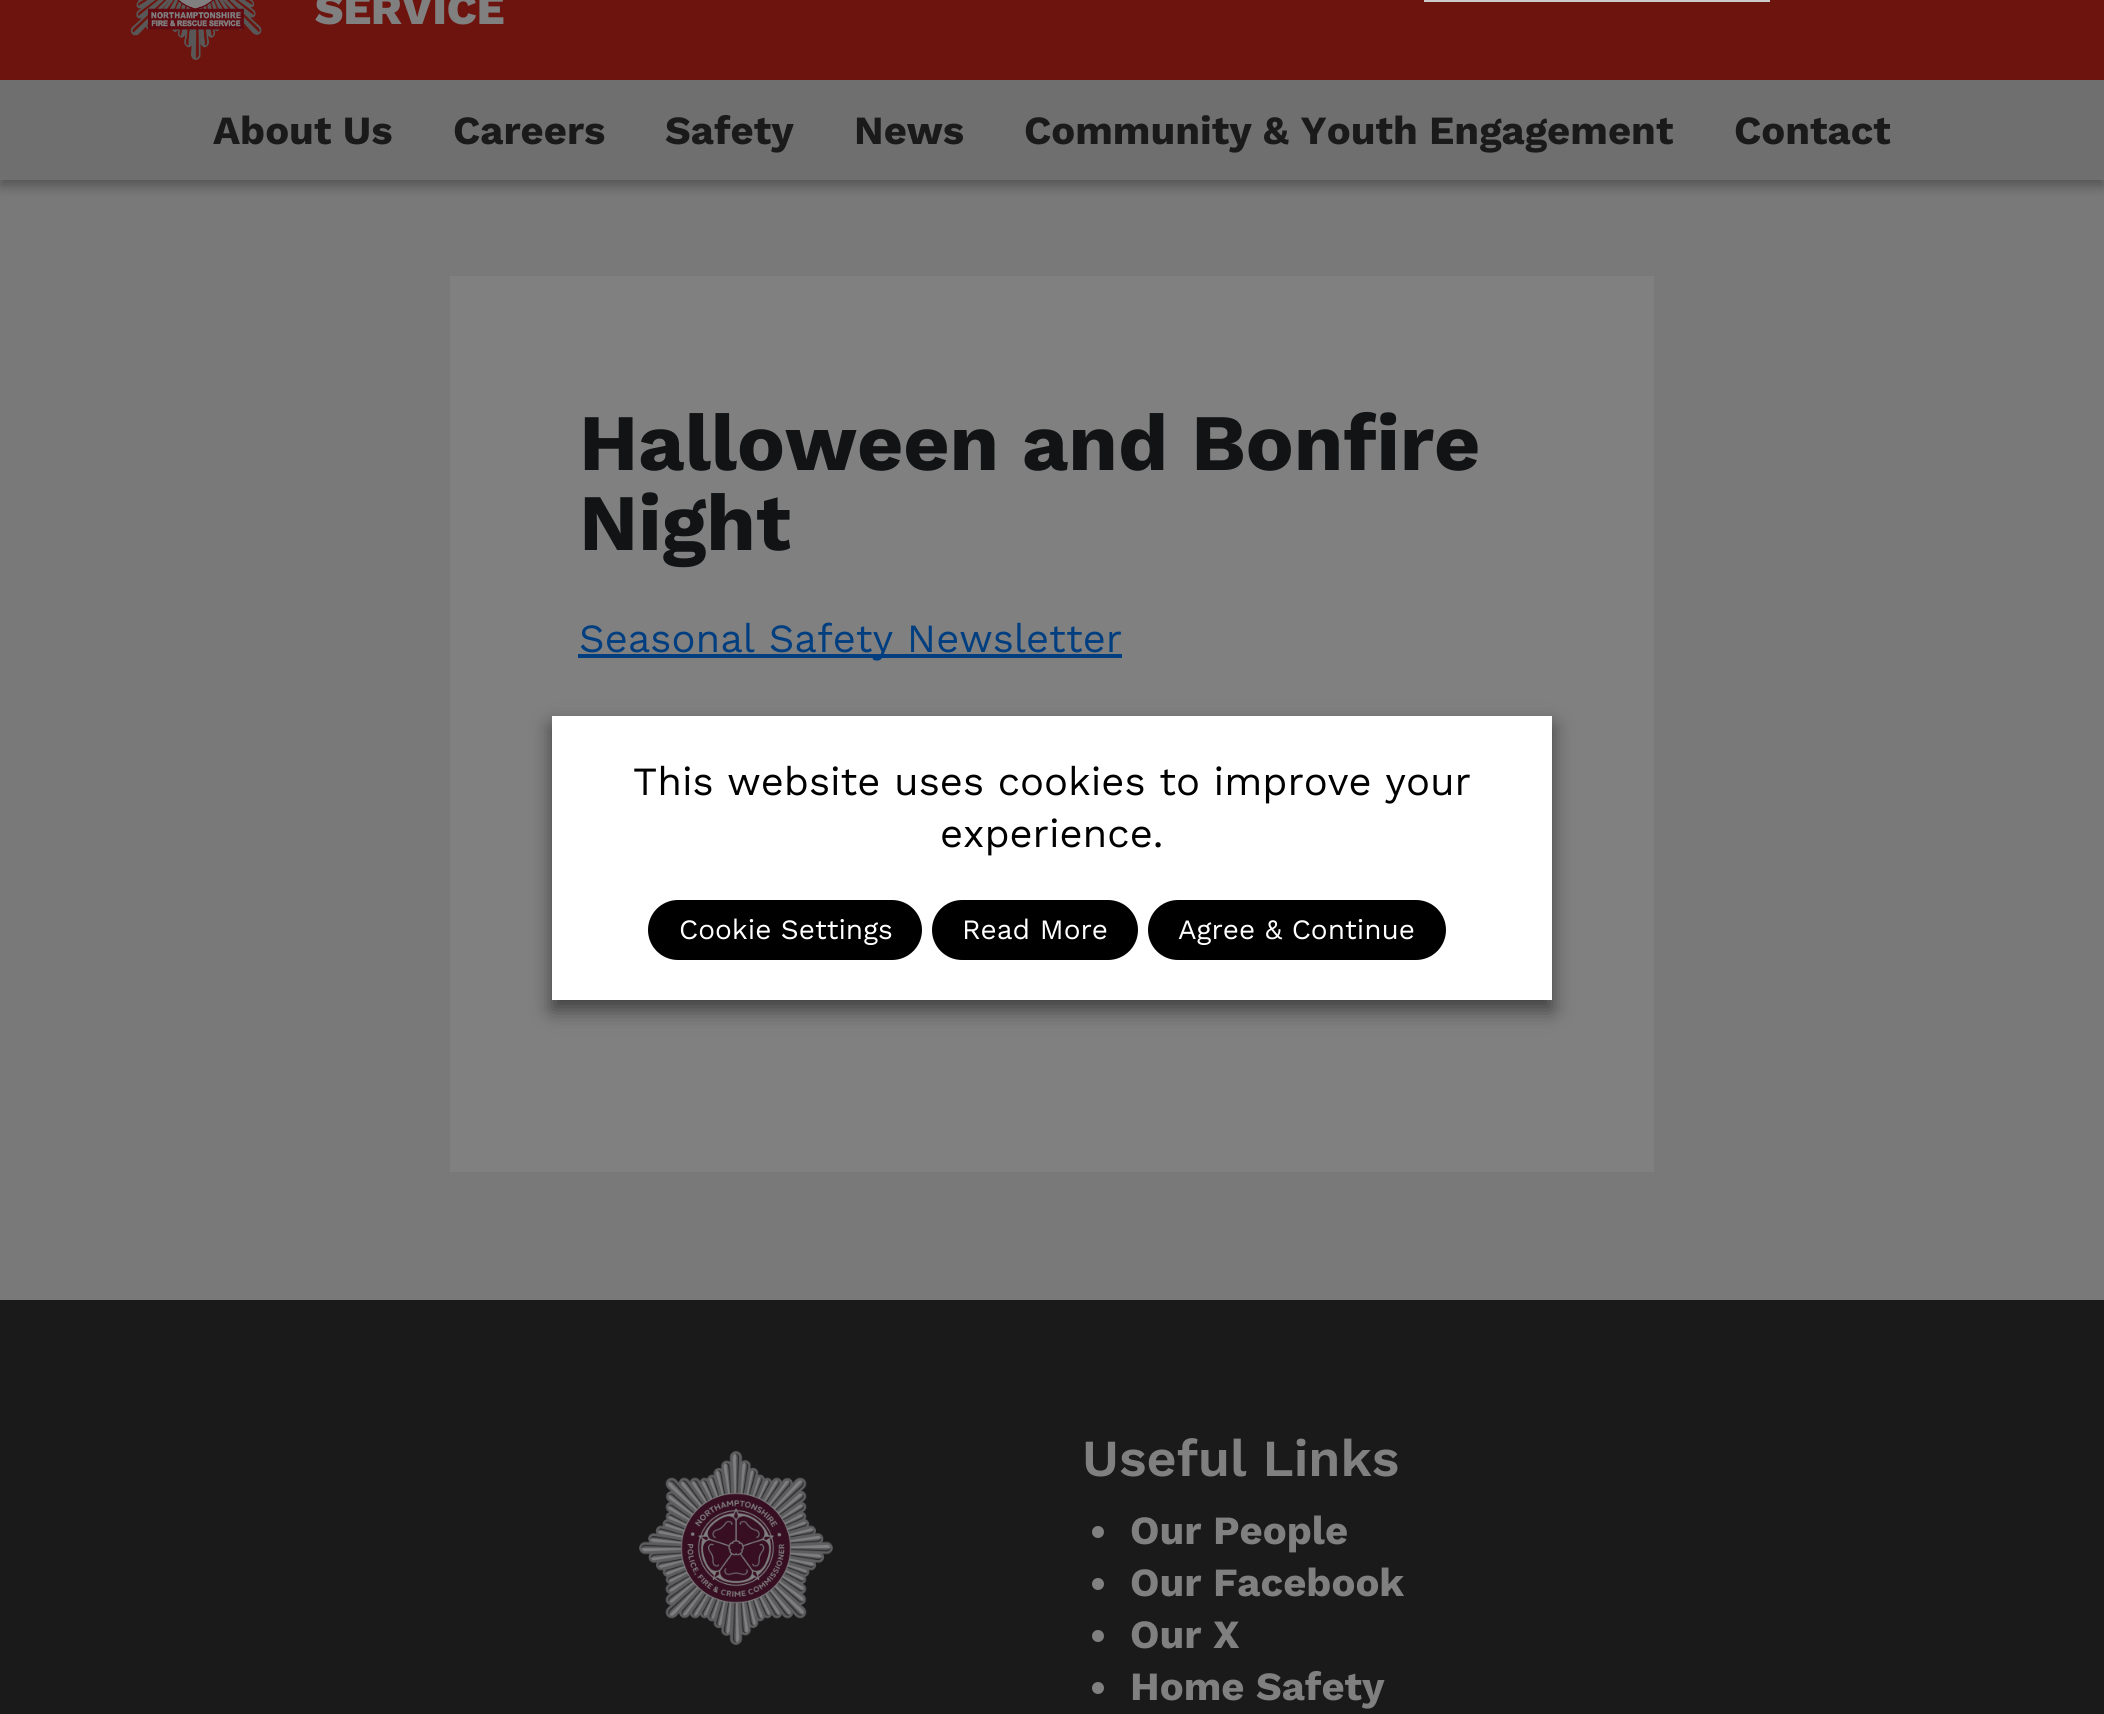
#include <cairo.h>
#include <math.h>
#include <stddef.h>


static void round_rect(cairo_t *cr, double x, double y, double w, double h, double r) {
    cairo_new_sub_path(cr);
    cairo_arc(cr, x + w - r, y + h - r, r, 0, M_PI / 2);
    cairo_arc(cr, x + r, y + h - r, r, M_PI / 2, M_PI);
    cairo_arc(cr, x + r, y + r, r, M_PI, 1.5 * M_PI);
    cairo_arc(cr, x + w - r, y + r, r, 1.5 * M_PI, 2 * M_PI);
    cairo_close_path(cr);
}

static void shadow(cairo_t *cr, double x, double y, double w, double h, double r, double blur, double alpha) {
    cairo_push_group_with_content(cr, CAIRO_CONTENT_ALPHA);
    cairo_set_operator(cr, CAIRO_OPERATOR_SOURCE);
    for (int i = 15; i >= -15 && fmin(w, h) + blur * i / 3 > 0; i -= 2) {
        double e = blur * i / 6;
        cairo_set_source_rgba(cr, 0, 0, 0, alpha * erfc((i - 1) / 8.5) / 2);
        round_rect(cr, x - e, y - e, w + 2 * e, h + 2 * e, fmax(0, fmin(r + e + blur * .6, fmin(w, h) / 2 + e)));
        cairo_fill(cr);
    }
    cairo_pattern_t *soft = cairo_pop_group(cr);
    cairo_mask(cr, soft);
    cairo_pattern_destroy(soft);
}

static void picture(cairo_t *cr, const char *path, double x, double y, double w, double h) {
    cairo_surface_t *image = cairo_image_surface_create_from_png(path);
    cairo_save(cr);
    cairo_set_source_surface(cr, image, x, y);
    cairo_rectangle(cr, x, y, w, h);
    cairo_fill(cr);
    cairo_restore(cr);
    cairo_surface_destroy(image);
}

int main(void) {
    cairo_surface_t *surface = cairo_image_surface_create(CAIRO_FORMAT_RGB24, 2104, 1714);
    cairo_t *cr = cairo_create(surface);
    cairo_font_options_t *options = cairo_font_options_create();
    cairo_font_options_set_hint_metrics(options, CAIRO_HINT_METRICS_OFF);
    cairo_font_options_set_hint_style(options, CAIRO_HINT_STYLE_NONE);
    cairo_set_font_options(cr, options);
    cairo_set_miter_limit(cr, 4);
    cairo_set_source_rgb(cr, 0.475, 0.475, 0.475);
    cairo_paint(cr);
    cairo_set_source_rgb(cr, 0, 0, 0);
    shadow(cr, 0, 86, 2104, 100, 0, 6, 0.3);
    cairo_set_source_rgb(cr, 0.427, 0.082, 0.055);
    cairo_rectangle(cr, 0, 0, 2104, 80);
    cairo_fill(cr);
    picture(cr, "img1.png", 130, 0, 132, 60);
    cairo_select_font_face(cr, "Work Sans ExtraBold", CAIRO_FONT_SLANT_NORMAL, CAIRO_FONT_WEIGHT_NORMAL);
    cairo_set_font_size(cr, 44);
    cairo_set_source_rgb(cr, 0.502, 0.502, 0.502);
    cairo_move_to(cr, 315, 24);
    cairo_show_text(cr, "SERVICE");
    cairo_rectangle(cr, 1425, -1, 344, 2);
    cairo_set_source_rgb(cr, 0.8, 0.8, 0.8);
    cairo_stroke(cr);
    cairo_set_source_rgb(cr, 0.435, 0.435, 0.435);
    cairo_rectangle(cr, 0, 80, 2104, 100);
    cairo_fill(cr);
    cairo_select_font_face(cr, "Work Sans", CAIRO_FONT_SLANT_NORMAL, CAIRO_FONT_WEIGHT_BOLD);
    cairo_set_font_size(cr, 40);
    cairo_set_source_rgb(cr, 0.102, 0.102, 0.102);
    cairo_move_to(cr, 213, 144);
    cairo_show_text(cr, "About Us");
    cairo_move_to(cr, 453, 144);
    cairo_show_text(cr, "Careers");
    cairo_move_to(cr, 665, 144);
    cairo_show_text(cr, "Safety");
    cairo_move_to(cr, 854, 144);
    cairo_show_text(cr, "News");
    cairo_move_to(cr, 1024, 144);
    cairo_show_text(cr, "Community & Youth Engagement");
    cairo_move_to(cr, 1734, 144);
    cairo_show_text(cr, "Contact");
    cairo_set_source_rgb(cr, 0.502, 0.502, 0.502);
    cairo_rectangle(cr, 450, 276, 1204, 896);
    cairo_fill(cr);
    cairo_set_font_size(cr, 80);
    cairo_set_source_rgb(cr, 0.067, 0.075, 0.082);
    cairo_move_to(cr, 579, 470);
    cairo_show_text(cr, "Halloween and Bonfire");
    cairo_move_to(cr, 579, 550);
    cairo_show_text(cr, "Night");
    cairo_set_source_rgb(cr, 0, 0.243, 0.502);
    cairo_rectangle(cr, 578, 654, 544, 4);
    cairo_fill(cr);
    cairo_select_font_face(cr, "Work Sans", CAIRO_FONT_SLANT_NORMAL, CAIRO_FONT_WEIGHT_NORMAL);
    cairo_set_font_size(cr, 40);
    cairo_move_to(cr, 579, 652);
    cairo_show_text(cr, "Seasonal Safety Newsletter");
    cairo_set_source_rgb(cr, 0.102, 0.102, 0.102);
    cairo_rectangle(cr, 0, 1300, 2104, 414);
    cairo_fill(cr);
    picture(cr, "img2.png", 639, 1451, 194, 194);
    cairo_select_font_face(cr, "Work Sans SemiBold", CAIRO_FONT_SLANT_NORMAL, CAIRO_FONT_WEIGHT_NORMAL);
    cairo_set_font_size(cr, 52);
    cairo_set_source_rgb(cr, 0.502, 0.502, 0.502);
    cairo_move_to(cr, 1082, 1476);
    cairo_show_text(cr, "Useful Links");
    cairo_new_path(cr);
    cairo_arc(cr, 1098, 1532, 6, 0, 2 * M_PI);
    cairo_fill(cr);
    cairo_select_font_face(cr, "Work Sans", CAIRO_FONT_SLANT_NORMAL, CAIRO_FONT_WEIGHT_BOLD);
    cairo_set_font_size(cr, 40);
    cairo_move_to(cr, 1130, 1544);
    cairo_show_text(cr, "Our People");
    cairo_new_path(cr);
    cairo_arc(cr, 1098, 1584, 6, 0, 2 * M_PI);
    cairo_fill(cr);
    cairo_move_to(cr, 1130, 1596);
    cairo_show_text(cr, "Our Facebook");
    cairo_new_path(cr);
    cairo_arc(cr, 1098, 1636, 6, 0, 2 * M_PI);
    cairo_fill(cr);
    cairo_move_to(cr, 1130, 1648);
    cairo_show_text(cr, "Our X");
    cairo_new_path(cr);
    cairo_arc(cr, 1098, 1688, 6, 0, 2 * M_PI);
    cairo_fill(cr);
    cairo_move_to(cr, 1130, 1700);
    cairo_show_text(cr, "Home Safety");
    cairo_set_source_rgb(cr, 0, 0, 0);
    shadow(cr, 552, 726, 1000, 284, 0, 10, 0.5);
    cairo_set_source_rgb(cr, 1, 1, 1);
    cairo_rectangle(cr, 552, 716, 1000, 284);
    cairo_fill(cr);
    cairo_select_font_face(cr, "Work Sans", CAIRO_FONT_SLANT_NORMAL, CAIRO_FONT_WEIGHT_NORMAL);
    cairo_set_source_rgb(cr, 0, 0, 0);
    cairo_move_to(cr, 633, 795);
    cairo_show_text(cr, "This website uses cookies to improve your");
    cairo_move_to(cr, 940, 847);
    cairo_show_text(cr, "experience.");
    round_rect(cr, 648, 900, 274, 60, 30);
    cairo_fill(cr);
    cairo_set_font_size(cr, 28);
    cairo_set_source_rgb(cr, 1, 1, 1);
    cairo_move_to(cr, 679, 939);
    cairo_show_text(cr, "Cookie Settings");
    cairo_set_source_rgb(cr, 0, 0, 0);
    round_rect(cr, 932, 900, 206, 60, 30);
    cairo_fill(cr);
    cairo_set_source_rgb(cr, 1, 1, 1);
    cairo_move_to(cr, 962, 939);
    cairo_show_text(cr, "Read More");
    cairo_set_source_rgb(cr, 0, 0, 0);
    round_rect(cr, 1148, 900, 298, 60, 30);
    cairo_fill(cr);
    cairo_set_source_rgb(cr, 1, 1, 1);
    cairo_move_to(cr, 1178, 939);
    cairo_show_text(cr, "Agree & Continue");
    cairo_surface_write_to_png(surface, "page.png");
    cairo_font_options_destroy(options);
    cairo_destroy(cr);
    cairo_surface_destroy(surface);
    return 0;
}
